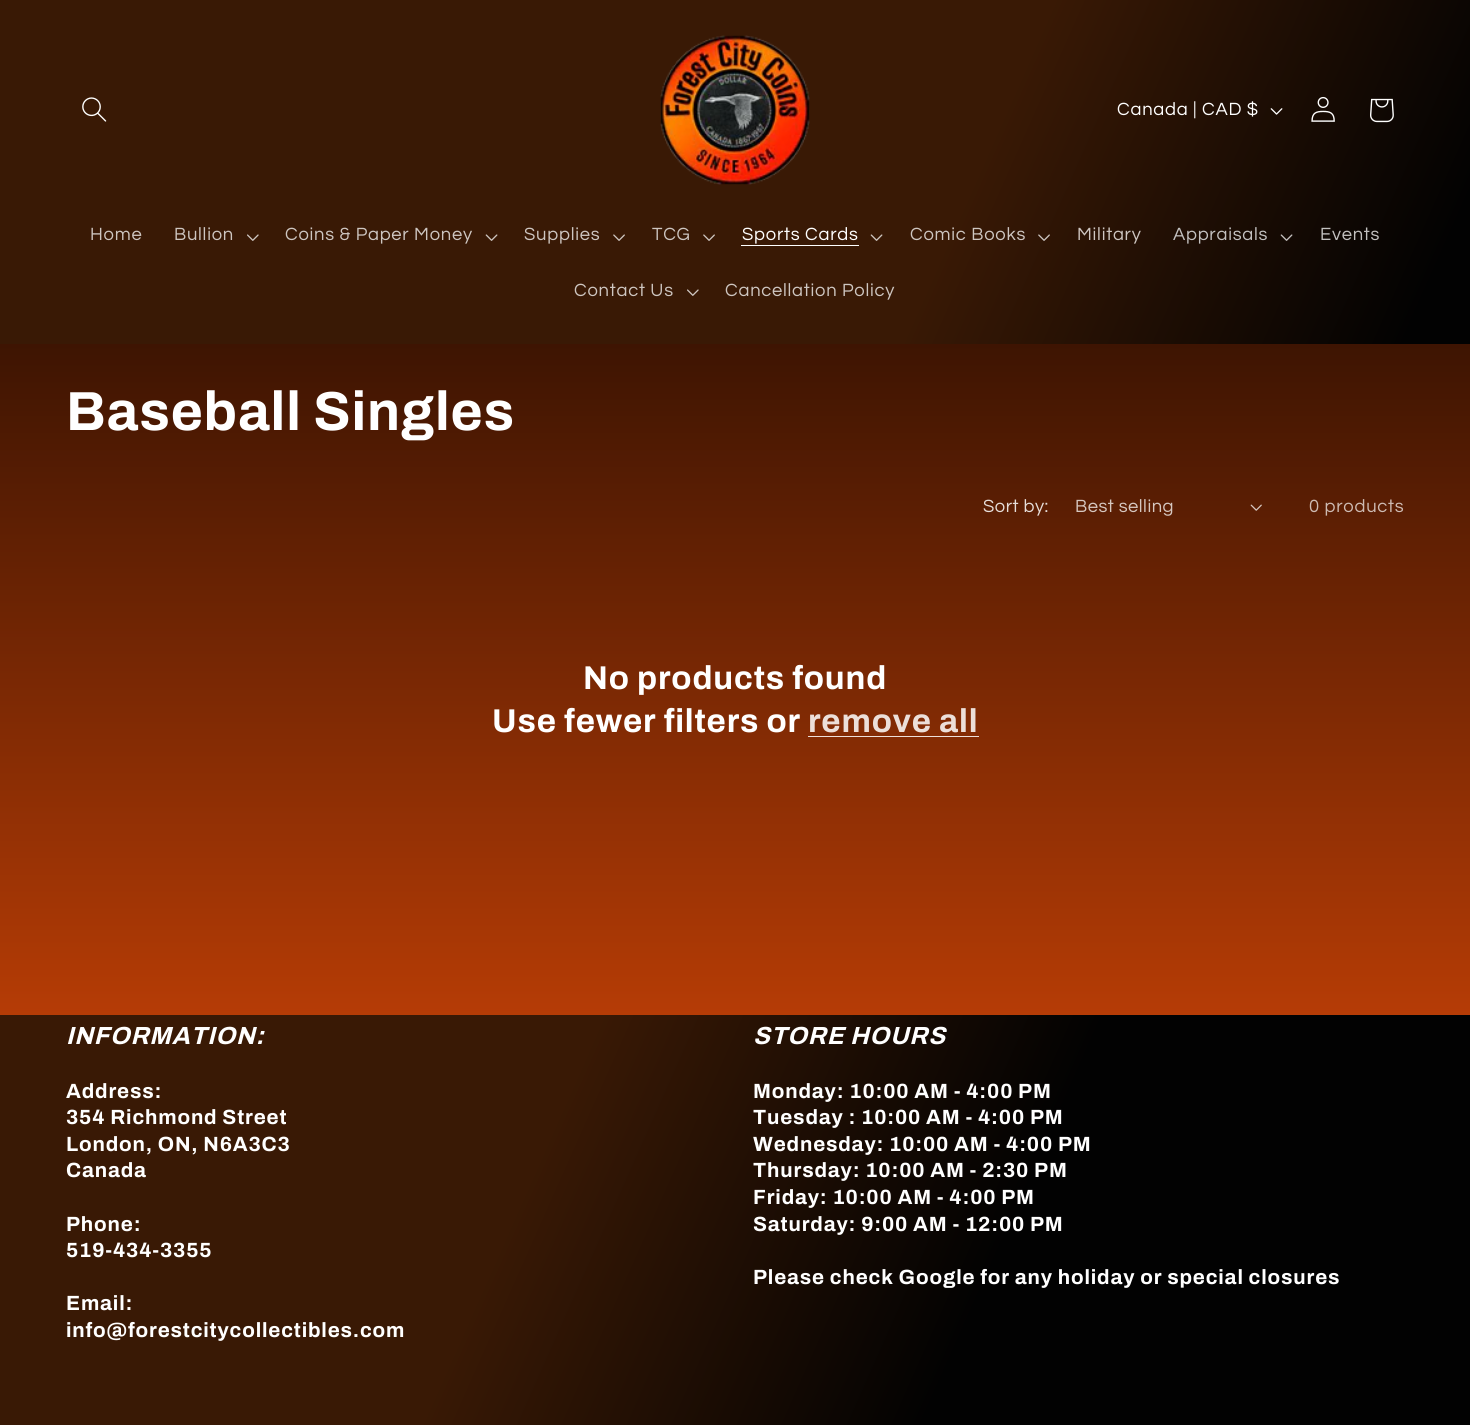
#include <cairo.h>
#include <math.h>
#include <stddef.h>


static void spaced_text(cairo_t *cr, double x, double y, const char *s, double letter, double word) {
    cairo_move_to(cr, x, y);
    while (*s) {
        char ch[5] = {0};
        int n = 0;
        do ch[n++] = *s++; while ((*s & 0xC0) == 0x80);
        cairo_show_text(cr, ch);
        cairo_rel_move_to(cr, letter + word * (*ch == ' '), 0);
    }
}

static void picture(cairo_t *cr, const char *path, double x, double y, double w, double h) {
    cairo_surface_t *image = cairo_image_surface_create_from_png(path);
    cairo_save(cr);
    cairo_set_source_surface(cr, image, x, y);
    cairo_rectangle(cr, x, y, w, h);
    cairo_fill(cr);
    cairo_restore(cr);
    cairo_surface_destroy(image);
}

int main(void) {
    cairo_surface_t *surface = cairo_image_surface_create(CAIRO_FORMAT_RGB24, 1470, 1425);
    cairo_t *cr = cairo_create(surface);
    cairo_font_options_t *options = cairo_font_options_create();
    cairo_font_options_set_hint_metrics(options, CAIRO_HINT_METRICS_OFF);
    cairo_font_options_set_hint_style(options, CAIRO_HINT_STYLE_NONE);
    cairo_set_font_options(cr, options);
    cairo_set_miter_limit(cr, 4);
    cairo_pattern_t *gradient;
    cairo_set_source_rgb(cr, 1, 1, 1);
    cairo_paint(cr);
    gradient = cairo_pattern_create_linear(735, 0, 735, 1425);
    cairo_pattern_add_color_stop_rgba(gradient, 0, 0, 0, 0, 1);
    cairo_pattern_add_color_stop_rgba(gradient, 1, 1, 0.329, 0.031, 1);
    cairo_set_source(cr, gradient);
    cairo_pattern_destroy(gradient);
    cairo_rectangle(cr, 0, 344, 1470, 671);
    cairo_fill(cr);
    gradient = cairo_pattern_create_linear(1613, 1103, -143, 322);
    cairo_pattern_add_color_stop_rgba(gradient, 0.26, 0.008, 0.008, 0.008, 1);
    cairo_pattern_add_color_stop_rgba(gradient, 0.5, 0.224, 0.098, 0.02, 1);
    cairo_set_source(cr, gradient);
    cairo_pattern_destroy(gradient);
    cairo_rectangle(cr, 0, 0, 1470, 344);
    cairo_fill(cr);
    picture(cr, "img1.png", 82, 97, 25, 25);
    picture(cr, "img2.png", 660, 35, 150, 150);
    cairo_select_font_face(cr, "Questrial", CAIRO_FONT_SLANT_NORMAL, CAIRO_FONT_WEIGHT_NORMAL);
    cairo_set_font_size(cr, 18.4);
    cairo_set_source_rgb(cr, 1, 1, 1);
    spaced_text(cr, 1117, 115, "Canada | CAD $", 0.75, 0);
    picture(cr, "img3.png", 1270, 108, 13, 7);
    picture(cr, "img4.png", 1311, 96, 24, 26);
    picture(cr, "img5.png", 1370, 98, 24, 25);
    cairo_set_source_rgb(cr, 0.808, 0.776, 0.757);
    spaced_text(cr, 90, 240, "Home", 0.75, 0);
    spaced_text(cr, 174, 240, "Bullion", 0.75, 0);
    picture(cr, "img6.png", 247, 234, 12, 7);
    spaced_text(cr, 285, 240, "Coins & Paper Money", 0.75, 0);
    picture(cr, "img7.png", 485, 234, 13, 7);
    spaced_text(cr, 524, 240, "Supplies", 0.75, 0);
    picture(cr, "img8.png", 613, 234, 12, 7);
    spaced_text(cr, 652, 240, "TCG", 0.75, 0);
    picture(cr, "img8.png", 703, 234, 12, 7);
    cairo_set_source_rgb(cr, 1, 1, 1);
    spaced_text(cr, 742, 240, "Sports Cards", 0.75, 0);
    cairo_rectangle(cr, 741, 245, 118, 1);
    cairo_fill(cr);
    picture(cr, "img7.png", 870, 234, 13, 7);
    cairo_set_source_rgb(cr, 0.808, 0.776, 0.757);
    spaced_text(cr, 910, 240, "Comic Books", 0.75, 0);
    picture(cr, "img9.png", 1038, 234, 12, 7);
    spaced_text(cr, 1077, 240, "Military", 0.75, 0);
    cairo_set_source_rgb(cr, 0.765, 0.757, 0.753);
    spaced_text(cr, 1173, 240, "Appraisals", 0.75, 0);
    picture(cr, "img10.png", 1280, 234, 13, 7);
    spaced_text(cr, 1320, 240, "Events", 0.75, 0);
    cairo_set_source_rgb(cr, 0.808, 0.776, 0.757);
    spaced_text(cr, 574, 296, "Contact Us", 0.75, 0);
    picture(cr, "img6.png", 687, 289, 12, 7);
    spaced_text(cr, 725, 296, "Cancellation Policy", 0.75, 0);
    cairo_select_font_face(cr, "Archivo", CAIRO_FONT_SLANT_NORMAL, CAIRO_FONT_WEIGHT_BOLD);
    cairo_set_font_size(cr, 55);
    cairo_set_source_rgb(cr, 1, 1, 1);
    spaced_text(cr, 66, 430, "Baseball Singles", 0.83, 0);
    cairo_select_font_face(cr, "Questrial", CAIRO_FONT_SLANT_NORMAL, CAIRO_FONT_WEIGHT_NORMAL);
    cairo_set_font_size(cr, 18.4);
    cairo_set_source_rgb(cr, 0.902, 0.867, 0.851);
    spaced_text(cr, 983, 512, "Sort by:", 0.5, 0);
    cairo_set_source_rgb(cr, 0.839, 0.78, 0.753);
    spaced_text(cr, 1075, 512, "Best selling", 0.5, 0);
    picture(cr, "img11.png", 1250, 504, 12, 7);
    cairo_set_source_rgb(cr, 0.808, 0.733, 0.702);
    spaced_text(cr, 1309, 512, "0 products", 0.75, 0);
    cairo_select_font_face(cr, "Archivo", CAIRO_FONT_SLANT_NORMAL, CAIRO_FONT_WEIGHT_BOLD);
    cairo_set_font_size(cr, 33);
    cairo_set_source_rgb(cr, 1, 1, 1);
    spaced_text(cr, 583, 689, "No products found", 0.83, 0);
    spaced_text(cr, 492, 732, "Use fewer filters or", 0.83, 0);
    cairo_set_source_rgb(cr, 0.925, 0.875, 0.851);
    spaced_text(cr, 808, 732, "remove all", 0.83, 0);
    cairo_set_source_rgb(cr, 0.929, 0.875, 0.851);
    cairo_rectangle(cr, 808, 736, 171, 1);
    cairo_fill(cr);
    gradient = cairo_pattern_create_linear(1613, 1103, -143, 322);
    cairo_pattern_add_color_stop_rgba(gradient, 0.26, 0.008, 0.008, 0.008, 1);
    cairo_pattern_add_color_stop_rgba(gradient, 0.5, 0.224, 0.098, 0.02, 1);
    cairo_set_source(cr, gradient);
    cairo_pattern_destroy(gradient);
    cairo_rectangle(cr, 0, 1015, 1470, 410);
    cairo_fill(cr);
    cairo_select_font_face(cr, "Archivo", CAIRO_FONT_SLANT_ITALIC, CAIRO_FONT_WEIGHT_BOLD);
    cairo_set_font_size(cr, 24.75);
    cairo_set_source_rgb(cr, 1, 1, 1);
    spaced_text(cr, 66, 1044, "INFORMATION:", 0.83, 0);
    cairo_select_font_face(cr, "Archivo", CAIRO_FONT_SLANT_NORMAL, CAIRO_FONT_WEIGHT_BOLD);
    cairo_set_font_size(cr, 20.6);
    spaced_text(cr, 66, 1098, "Address:", 0.83, 0);
    spaced_text(cr, 66, 1124, "354 Richmond Street", 0.83, 0);
    spaced_text(cr, 66, 1151, "London, ON, N6A3C3", 0.83, 0);
    spaced_text(cr, 66, 1177, "Canada", 0.83, 0);
    spaced_text(cr, 66, 1231, "Phone:", 0.83, 0);
    spaced_text(cr, 66, 1257, "519-434-3355", 0.83, 0);
    spaced_text(cr, 66, 1310, "Email:", 0.83, 0);
    spaced_text(cr, 66, 1337, "info@forestcitycollectibles.com", 0.83, 0);
    cairo_select_font_face(cr, "Archivo", CAIRO_FONT_SLANT_ITALIC, CAIRO_FONT_WEIGHT_BOLD);
    cairo_set_font_size(cr, 24.75);
    spaced_text(cr, 753, 1044, "STORE HOURS", 0.83, 0);
    cairo_select_font_face(cr, "Archivo", CAIRO_FONT_SLANT_NORMAL, CAIRO_FONT_WEIGHT_BOLD);
    cairo_set_font_size(cr, 20.6);
    spaced_text(cr, 753, 1098, "Monday: 10:00 AM - 4:00 PM", 0.83, 0);
    spaced_text(cr, 753, 1124, "Tuesday : 10:00 AM - 4:00 PM", 0.83, 0);
    spaced_text(cr, 753, 1151, "Wednesday: 10:00 AM - 4:00 PM", 0.83, 0);
    spaced_text(cr, 753, 1177, "Thursday: 10:00 AM - 2:30 PM", 0.83, 0);
    spaced_text(cr, 753, 1204, "Friday: 10:00 AM - 4:00 PM", 0.83, 0);
    spaced_text(cr, 753, 1231, "Saturday: 9:00 AM - 12:00 PM", 0.83, 0);
    spaced_text(cr, 753, 1284, "Please check Google for any holiday or special closures", 0.83, 0);
    cairo_surface_write_to_png(surface, "page.png");
    cairo_font_options_destroy(options);
    cairo_destroy(cr);
    cairo_surface_destroy(surface);
    return 0;
}
